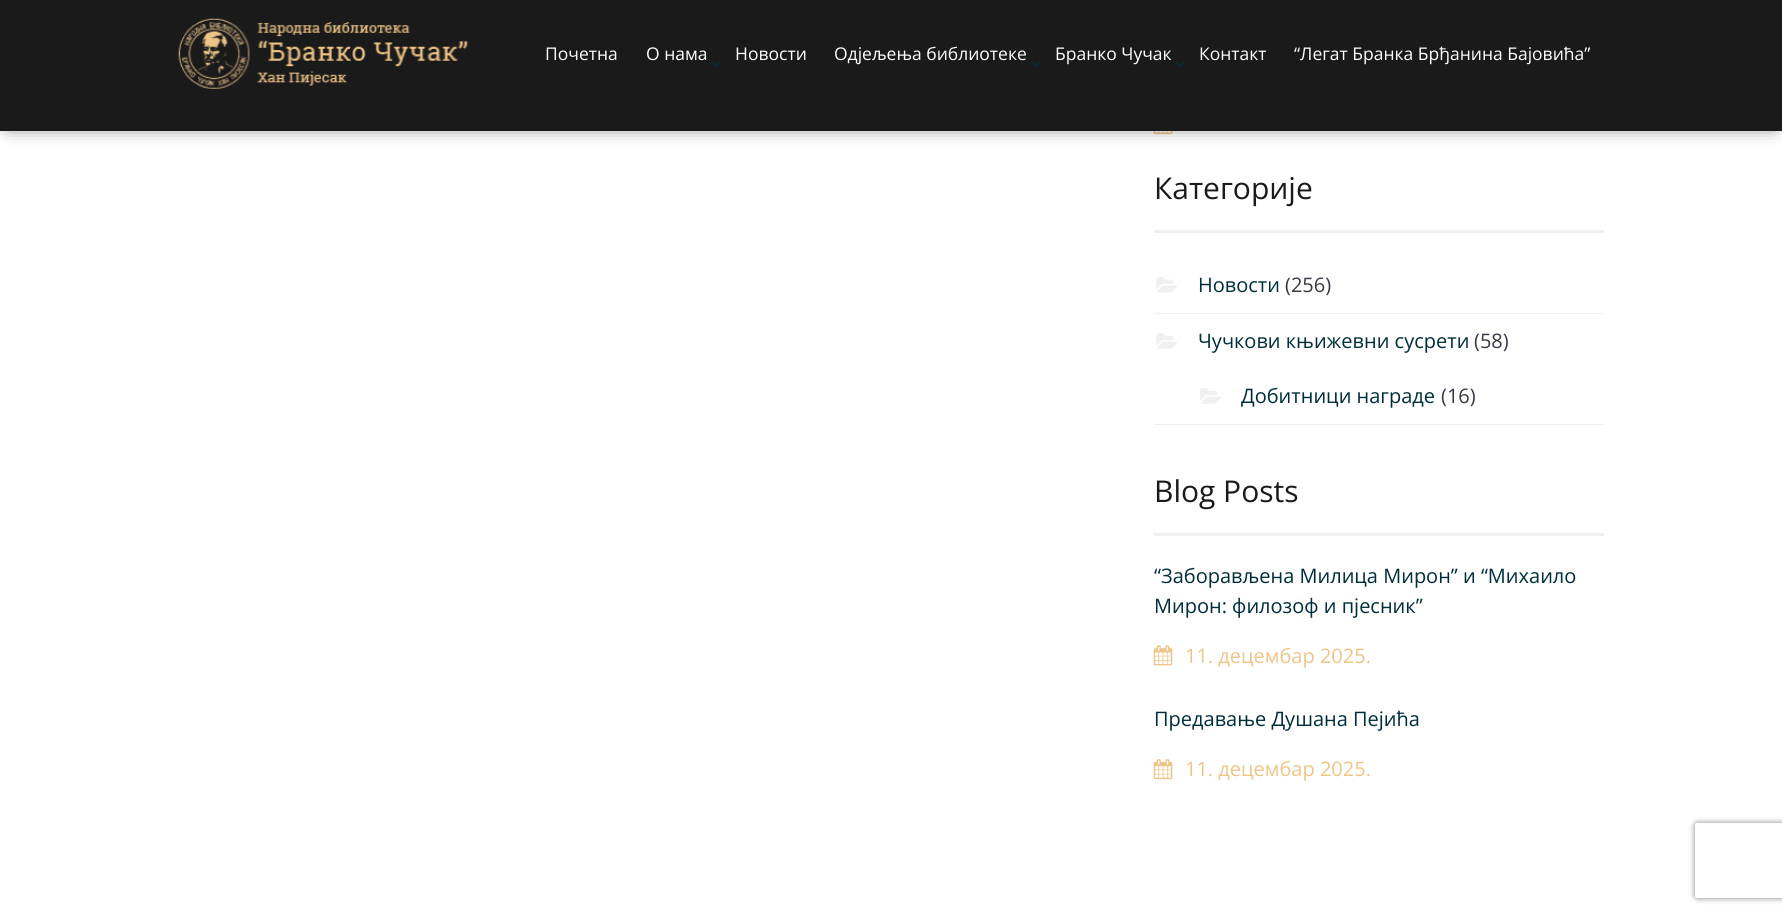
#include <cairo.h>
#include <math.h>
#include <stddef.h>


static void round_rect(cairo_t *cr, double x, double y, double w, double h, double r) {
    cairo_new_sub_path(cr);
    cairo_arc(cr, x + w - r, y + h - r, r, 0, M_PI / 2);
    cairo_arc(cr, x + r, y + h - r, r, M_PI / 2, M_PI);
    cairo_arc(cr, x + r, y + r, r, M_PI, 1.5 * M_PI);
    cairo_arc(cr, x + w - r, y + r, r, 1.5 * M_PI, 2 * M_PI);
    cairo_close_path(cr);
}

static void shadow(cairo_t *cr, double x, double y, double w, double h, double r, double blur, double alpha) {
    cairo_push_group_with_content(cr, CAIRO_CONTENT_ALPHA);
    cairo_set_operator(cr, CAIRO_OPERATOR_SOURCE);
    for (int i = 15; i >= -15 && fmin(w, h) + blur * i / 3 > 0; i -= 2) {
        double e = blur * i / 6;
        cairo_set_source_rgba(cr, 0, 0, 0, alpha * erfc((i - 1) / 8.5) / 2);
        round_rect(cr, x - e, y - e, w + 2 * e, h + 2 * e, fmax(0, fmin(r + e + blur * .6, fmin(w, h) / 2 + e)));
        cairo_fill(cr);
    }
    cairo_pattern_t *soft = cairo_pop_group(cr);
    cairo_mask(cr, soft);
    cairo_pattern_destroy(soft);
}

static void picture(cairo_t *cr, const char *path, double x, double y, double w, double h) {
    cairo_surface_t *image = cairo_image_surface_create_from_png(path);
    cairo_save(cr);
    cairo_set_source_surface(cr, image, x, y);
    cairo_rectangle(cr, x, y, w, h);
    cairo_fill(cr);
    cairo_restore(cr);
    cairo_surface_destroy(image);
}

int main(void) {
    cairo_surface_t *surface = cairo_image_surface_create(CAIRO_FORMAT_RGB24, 1782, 914);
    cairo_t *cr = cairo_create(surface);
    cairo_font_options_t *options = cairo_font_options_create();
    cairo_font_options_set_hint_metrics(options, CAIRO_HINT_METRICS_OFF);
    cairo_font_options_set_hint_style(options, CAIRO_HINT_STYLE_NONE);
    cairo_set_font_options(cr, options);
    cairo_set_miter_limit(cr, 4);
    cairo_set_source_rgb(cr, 1, 1, 1);
    cairo_paint(cr);
    picture(cr, "img3.png", 1153, 131, 20, 4);
    cairo_set_source_rgb(cr, 0, 0, 0);
    shadow(cr, 9, 9, 1765, 114, 0, 9.5, 1);
    cairo_set_source_rgb(cr, 0.102, 0.102, 0.102);
    cairo_rectangle(cr, 0, 0, 1782, 131);
    cairo_fill(cr);
    picture(cr, "img1.png", 178, 18, 290, 71);
    cairo_select_font_face(cr, "Open Sans", CAIRO_FONT_SLANT_NORMAL, CAIRO_FONT_WEIGHT_NORMAL);
    cairo_set_font_size(cr, 17.5);
    cairo_set_source_rgb(cr, 1, 1, 1);
    cairo_move_to(cr, 545, 60);
    cairo_show_text(cr, "Почетна");
    cairo_move_to(cr, 646, 60);
    cairo_show_text(cr, "О нама");
    picture(cr, "img2.png", 710, 62, 10, 5);
    cairo_move_to(cr, 735, 60);
    cairo_show_text(cr, "Новости");
    cairo_move_to(cr, 834, 60);
    cairo_show_text(cr, "Одјељења библиотеке");
    picture(cr, "img2.png", 1030, 62, 10, 5);
    cairo_move_to(cr, 1055, 60);
    cairo_show_text(cr, "Бранко Чучак");
    picture(cr, "img2.png", 1175, 62, 10, 5);
    cairo_move_to(cr, 1199, 60);
    cairo_show_text(cr, "Контакт");
    cairo_move_to(cr, 1294, 60);
    cairo_show_text(cr, "“Легат Бранка Брђанина Бајовића”");
    cairo_set_source_rgb(cr, 0.941, 0.941, 0.941);
    cairo_rectangle(cr, 1154, 230, 450, 3);
    cairo_fill(cr);
    cairo_set_font_size(cr, 30);
    cairo_set_source_rgb(cr, 0.102, 0.102, 0.102);
    cairo_move_to(cr, 1154, 199);
    cairo_show_text(cr, "Категорије");
    cairo_set_source_rgb(cr, 0.941, 0.941, 0.941);
    cairo_rectangle(cr, 1154, 313, 450, 1);
    cairo_fill(cr);
    picture(cr, "img4.png", 1156, 277, 21, 16);
    cairo_set_font_size(cr, 20);
    cairo_set_source_rgb(cr, 0, 0.18, 0.231);
    cairo_move_to(cr, 1198, 292);
    cairo_show_text(cr, "Новости");
    cairo_set_source_rgb(cr, 0.216, 0.224, 0.275);
    cairo_move_to(cr, 1285, 292);
    cairo_show_text(cr, "(256)");
    cairo_set_source_rgb(cr, 0.941, 0.941, 0.941);
    cairo_rectangle(cr, 1154, 424, 450, 1);
    cairo_fill(cr);
    picture(cr, "img5.png", 1156, 333, 21, 16);
    cairo_set_source_rgb(cr, 0, 0.18, 0.231);
    cairo_move_to(cr, 1198, 348);
    cairo_show_text(cr, "Чучкови књижевни сусрети");
    cairo_set_source_rgb(cr, 0.216, 0.224, 0.275);
    cairo_move_to(cr, 1474, 348);
    cairo_show_text(cr, "(58)");
    picture(cr, "img6.png", 1200, 388, 21, 16);
    cairo_set_source_rgb(cr, 0, 0.18, 0.231);
    cairo_move_to(cr, 1241, 403);
    cairo_show_text(cr, "Добитници награде");
    cairo_set_source_rgb(cr, 0.216, 0.224, 0.275);
    cairo_move_to(cr, 1441, 403);
    cairo_show_text(cr, "(16)");
    cairo_set_source_rgb(cr, 0.941, 0.941, 0.941);
    cairo_rectangle(cr, 1154, 533, 450, 3);
    cairo_fill(cr);
    cairo_set_font_size(cr, 30);
    cairo_set_source_rgb(cr, 0.102, 0.102, 0.102);
    cairo_move_to(cr, 1154, 502);
    cairo_show_text(cr, "Blog Posts");
    cairo_set_font_size(cr, 20);
    cairo_set_source_rgb(cr, 0, 0.18, 0.231);
    cairo_move_to(cr, 1154, 583);
    cairo_show_text(cr, "“Заборављена Милица Мирон” и “Михаило");
    cairo_move_to(cr, 1154, 613);
    cairo_show_text(cr, "Мирон: филозоф и пјесник”");
    picture(cr, "img7.png", 1153, 645, 20, 21);
    cairo_set_source_rgb(cr, 0.933, 0.773, 0.529);
    cairo_move_to(cr, 1185, 663);
    cairo_show_text(cr, "11. децембар 2025.");
    cairo_set_source_rgb(cr, 0, 0.18, 0.231);
    cairo_move_to(cr, 1154, 726);
    cairo_show_text(cr, "Предавање Душана Пејића");
    picture(cr, "img8.png", 1153, 759, 20, 21);
    cairo_set_source_rgb(cr, 0.933, 0.773, 0.529);
    cairo_move_to(cr, 1185, 776);
    cairo_show_text(cr, "11. децембар 2025.");
    cairo_save(cr);
    cairo_set_fill_rule(cr, CAIRO_FILL_RULE_EVEN_ODD);
    cairo_new_path(cr);
    cairo_move_to(cr, 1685, 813);
    cairo_line_to(cr, 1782, 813);
    cairo_line_to(cr, 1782, 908);
    cairo_line_to(cr, 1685, 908);
    cairo_close_path(cr);
    cairo_move_to(cr, 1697.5, 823);
    cairo_line_to(cr, 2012.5, 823);
    cairo_curve_to(cr, 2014, 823, 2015, 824, 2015, 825.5);
    cairo_line_to(cr, 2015, 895.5);
    cairo_curve_to(cr, 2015, 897, 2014, 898, 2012.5, 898);
    cairo_line_to(cr, 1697.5, 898);
    cairo_curve_to(cr, 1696, 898, 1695, 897, 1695, 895.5);
    cairo_line_to(cr, 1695, 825.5);
    cairo_curve_to(cr, 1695, 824, 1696, 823, 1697.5, 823);
    cairo_close_path(cr);
    cairo_clip(cr);
    cairo_set_source_rgb(cr, 0.502, 0.502, 0.502);
    shadow(cr, 1695, 823, 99, 75, 2.5, 3, 1);
    cairo_restore(cr);
    cairo_surface_write_to_png(surface, "page.png");
    cairo_font_options_destroy(options);
    cairo_destroy(cr);
    cairo_surface_destroy(surface);
    return 0;
}
